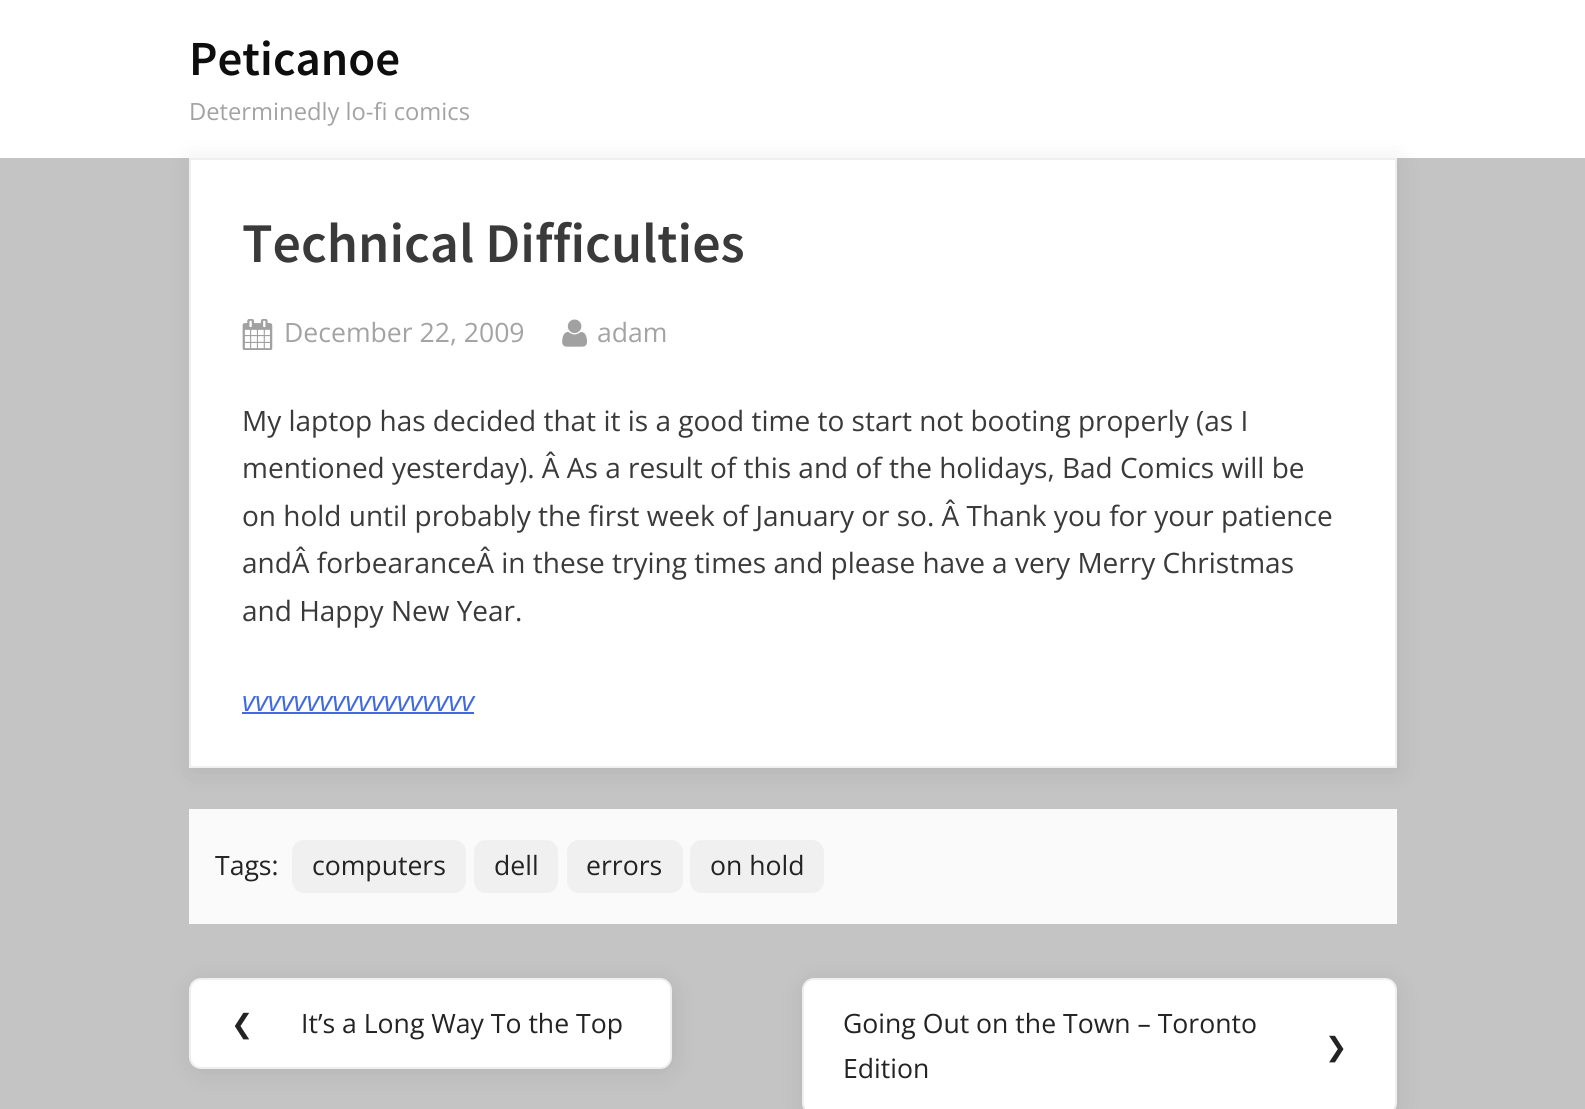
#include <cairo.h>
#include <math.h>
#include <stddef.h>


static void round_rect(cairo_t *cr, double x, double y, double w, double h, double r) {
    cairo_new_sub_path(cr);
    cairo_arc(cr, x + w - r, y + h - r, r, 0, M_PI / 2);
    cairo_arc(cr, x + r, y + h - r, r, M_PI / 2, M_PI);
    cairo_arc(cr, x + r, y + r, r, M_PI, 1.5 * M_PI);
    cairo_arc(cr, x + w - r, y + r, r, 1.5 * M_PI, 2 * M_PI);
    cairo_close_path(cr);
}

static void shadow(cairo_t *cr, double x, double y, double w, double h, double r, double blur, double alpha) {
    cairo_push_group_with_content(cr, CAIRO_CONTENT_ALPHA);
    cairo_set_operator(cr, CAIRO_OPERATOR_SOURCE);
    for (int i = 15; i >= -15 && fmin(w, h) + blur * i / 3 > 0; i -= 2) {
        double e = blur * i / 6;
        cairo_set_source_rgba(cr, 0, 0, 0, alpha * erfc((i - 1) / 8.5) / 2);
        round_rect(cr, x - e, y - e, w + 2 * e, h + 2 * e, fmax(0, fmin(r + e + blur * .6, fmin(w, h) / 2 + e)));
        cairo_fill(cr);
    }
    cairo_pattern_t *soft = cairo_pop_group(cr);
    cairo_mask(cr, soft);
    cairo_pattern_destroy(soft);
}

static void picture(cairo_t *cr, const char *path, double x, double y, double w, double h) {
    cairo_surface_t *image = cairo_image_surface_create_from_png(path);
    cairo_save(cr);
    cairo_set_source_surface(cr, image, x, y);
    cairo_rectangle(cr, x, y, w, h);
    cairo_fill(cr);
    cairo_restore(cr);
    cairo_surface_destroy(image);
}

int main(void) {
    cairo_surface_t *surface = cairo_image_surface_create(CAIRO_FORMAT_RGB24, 1585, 1109);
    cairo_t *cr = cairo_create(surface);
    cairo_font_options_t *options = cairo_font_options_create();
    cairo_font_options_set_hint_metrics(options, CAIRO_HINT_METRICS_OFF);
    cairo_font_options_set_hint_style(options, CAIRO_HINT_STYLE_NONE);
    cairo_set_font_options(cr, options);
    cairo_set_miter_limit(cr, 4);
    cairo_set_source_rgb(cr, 0.769, 0.769, 0.769);
    cairo_paint(cr);
    cairo_set_source_rgb(cr, 1, 1, 1);
    cairo_rectangle(cr, 0, 0, 1585, 158);
    cairo_fill(cr);
    cairo_select_font_face(cr, "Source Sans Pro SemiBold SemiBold", CAIRO_FONT_SLANT_NORMAL, CAIRO_FONT_WEIGHT_NORMAL);
    cairo_set_font_size(cr, 49);
    cairo_set_source_rgb(cr, 0.055, 0.055, 0.055);
    cairo_move_to(cr, 189, 75);
    cairo_show_text(cr, "Peticanoe");
    cairo_select_font_face(cr, "Open Sans", CAIRO_FONT_SLANT_NORMAL, CAIRO_FONT_WEIGHT_NORMAL);
    cairo_set_font_size(cr, 23.75);
    cairo_set_source_rgb(cr, 0.639, 0.639, 0.639);
    cairo_move_to(cr, 189, 120);
    cairo_show_text(cr, "Determinedly lo-fi comics");
    cairo_set_source_rgb(cr, 0, 0, 0);
    shadow(cr, 191, 161, 1207, 611, 0, 14, 0.08);
    cairo_set_source_rgb(cr, 1, 1, 1);
    cairo_rectangle(cr, 190, 159, 1206, 608);
    cairo_fill_preserve(cr);
    cairo_set_source_rgb(cr, 0.937, 0.937, 0.937);
    cairo_stroke(cr);
    cairo_select_font_face(cr, "Source Sans Pro SemiBold SemiBold", CAIRO_FONT_SLANT_NORMAL, CAIRO_FONT_WEIGHT_NORMAL);
    cairo_set_font_size(cr, 56);
    cairo_set_source_rgb(cr, 0.227, 0.227, 0.227);
    cairo_move_to(cr, 242, 262);
    cairo_show_text(cr, "Technical Difficulties");
    picture(cr, "img1.png", 242, 319, 31, 31);
    cairo_select_font_face(cr, "Open Sans", CAIRO_FONT_SLANT_NORMAL, CAIRO_FONT_WEIGHT_NORMAL);
    cairo_set_font_size(cr, 26.6);
    cairo_set_source_rgb(cr, 0.639, 0.639, 0.639);
    cairo_move_to(cr, 284, 342);
    cairo_show_text(cr, "December 22, 2009");
    picture(cr, "img2.png", 562, 319, 25, 28);
    cairo_move_to(cr, 597, 342);
    cairo_show_text(cr, "adam");
    cairo_set_font_size(cr, 28);
    cairo_set_source_rgb(cr, 0.227, 0.227, 0.227);
    cairo_move_to(cr, 242, 431);
    cairo_show_text(cr, "My laptop has decided that it is a good time to start not booting properly (as I");
    cairo_move_to(cr, 242, 478);
    cairo_show_text(cr, "mentioned yesterday). Â As a result of this and of the holidays, Bad Comics will be");
    cairo_move_to(cr, 242, 526);
    cairo_show_text(cr, "on hold until probably the first week of January or so. Â Thank you for your patience");
    cairo_move_to(cr, 242, 573);
    cairo_show_text(cr, "andÂ forbearanceÂ in these trying times and please have a very Merry Christmas");
    cairo_move_to(cr, 242, 621);
    cairo_show_text(cr, "and Happy New Year.");
    cairo_select_font_face(cr, "Open Sans", CAIRO_FONT_SLANT_ITALIC, CAIRO_FONT_WEIGHT_NORMAL);
    cairo_set_source_rgb(cr, 0.255, 0.412, 0.882);
    cairo_move_to(cr, 242, 711);
    cairo_show_text(cr, "vvvvvvvvvvvvvvvvvv");
    cairo_rectangle(cr, 242, 712, 232, 2);
    cairo_fill(cr);
    cairo_set_source_rgb(cr, 0.98, 0.98, 0.98);
    cairo_rectangle(cr, 189, 809, 1208, 115);
    cairo_fill(cr);
    cairo_select_font_face(cr, "Open Sans", CAIRO_FONT_SLANT_NORMAL, CAIRO_FONT_WEIGHT_NORMAL);
    cairo_set_font_size(cr, 26.6);
    cairo_set_source_rgb(cr, 0.141, 0.137, 0.137);
    cairo_move_to(cr, 215, 875);
    cairo_show_text(cr, "Tags:");
    cairo_set_source_rgb(cr, 0.941, 0.941, 0.941);
    round_rect(cr, 292, 840, 174, 53, 12);
    cairo_fill(cr);
    cairo_set_source_rgb(cr, 0.141, 0.137, 0.137);
    cairo_move_to(cr, 312, 875);
    cairo_show_text(cr, "computers");
    cairo_set_source_rgb(cr, 0.941, 0.941, 0.941);
    round_rect(cr, 474, 840, 84, 53, 12);
    cairo_fill(cr);
    cairo_set_source_rgb(cr, 0.141, 0.137, 0.137);
    cairo_move_to(cr, 494, 875);
    cairo_show_text(cr, "dell");
    cairo_set_source_rgb(cr, 0.941, 0.941, 0.941);
    round_rect(cr, 567, 840, 116, 53, 12);
    cairo_fill(cr);
    cairo_set_source_rgb(cr, 0.141, 0.137, 0.137);
    cairo_move_to(cr, 586, 875);
    cairo_show_text(cr, "errors");
    cairo_set_source_rgb(cr, 0.941, 0.941, 0.941);
    round_rect(cr, 690, 840, 134, 53, 12);
    cairo_fill(cr);
    cairo_set_source_rgb(cr, 0.141, 0.137, 0.137);
    cairo_move_to(cr, 710, 875);
    cairo_show_text(cr, "on hold");
    cairo_set_source_rgb(cr, 0, 0, 0);
    shadow(cr, 191, 982, 483, 91, 12, 14, 0.08);
    cairo_set_source_rgb(cr, 1, 1, 1);
    round_rect(cr, 190, 979, 481, 89, 11);
    cairo_fill_preserve(cr);
    cairo_set_source_rgb(cr, 0.937, 0.937, 0.937);
    cairo_stroke(cr);
    cairo_select_font_face(cr, "DejaVu Sans", CAIRO_FONT_SLANT_NORMAL, CAIRO_FONT_WEIGHT_NORMAL);
    cairo_set_source_rgb(cr, 0.141, 0.137, 0.137);
    cairo_move_to(cr, 231, 1033);
    cairo_show_text(cr, "❮");
    cairo_select_font_face(cr, "Open Sans", CAIRO_FONT_SLANT_NORMAL, CAIRO_FONT_WEIGHT_NORMAL);
    cairo_move_to(cr, 301, 1033);
    cairo_show_text(cr, "It’s a Long Way To the Top");
    cairo_set_source_rgb(cr, 0, 0, 0);
    shadow(cr, 803, 982, 595, 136, 12, 14, 0.08);
    cairo_set_source_rgb(cr, 1, 1, 1);
    round_rect(cr, 803, 979, 593, 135, 11);
    cairo_fill_preserve(cr);
    cairo_set_source_rgb(cr, 0.937, 0.937, 0.937);
    cairo_stroke(cr);
    cairo_set_source_rgb(cr, 0.141, 0.137, 0.137);
    cairo_move_to(cr, 843, 1033);
    cairo_show_text(cr, "Going Out on the Town – Toronto");
    cairo_move_to(cr, 843, 1078);
    cairo_show_text(cr, "Edition");
    cairo_select_font_face(cr, "DejaVu Sans", CAIRO_FONT_SLANT_NORMAL, CAIRO_FONT_WEIGHT_NORMAL);
    cairo_move_to(cr, 1325, 1056);
    cairo_show_text(cr, "❯");
    cairo_surface_write_to_png(surface, "page.png");
    cairo_font_options_destroy(options);
    cairo_destroy(cr);
    cairo_surface_destroy(surface);
    return 0;
}
